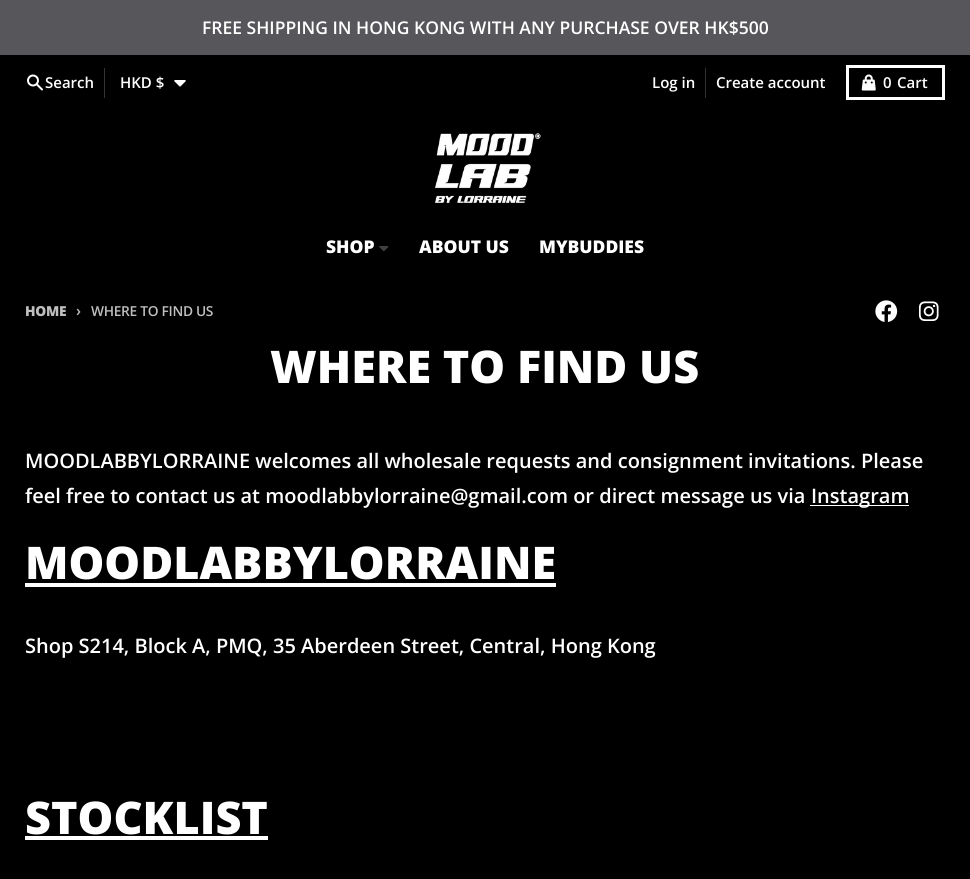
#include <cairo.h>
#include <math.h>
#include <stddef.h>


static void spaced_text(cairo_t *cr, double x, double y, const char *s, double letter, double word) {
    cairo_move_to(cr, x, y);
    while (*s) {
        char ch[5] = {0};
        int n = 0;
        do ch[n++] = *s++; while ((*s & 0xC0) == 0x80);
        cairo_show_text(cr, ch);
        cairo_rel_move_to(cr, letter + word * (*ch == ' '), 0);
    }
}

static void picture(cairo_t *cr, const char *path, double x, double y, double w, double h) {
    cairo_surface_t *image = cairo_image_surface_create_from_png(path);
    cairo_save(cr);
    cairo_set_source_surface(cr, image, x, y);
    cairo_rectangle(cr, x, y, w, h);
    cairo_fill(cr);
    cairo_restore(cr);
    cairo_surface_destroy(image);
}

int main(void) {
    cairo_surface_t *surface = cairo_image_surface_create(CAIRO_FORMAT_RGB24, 970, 879);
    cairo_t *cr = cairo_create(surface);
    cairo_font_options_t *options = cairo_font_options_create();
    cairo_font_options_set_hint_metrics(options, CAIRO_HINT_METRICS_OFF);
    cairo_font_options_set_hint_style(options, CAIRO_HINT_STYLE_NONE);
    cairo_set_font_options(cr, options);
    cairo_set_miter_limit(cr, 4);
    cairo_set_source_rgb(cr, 0.337, 0.337, 0.357);
    cairo_paint(cr);
    cairo_select_font_face(cr, "Open Sans SemiBold", CAIRO_FONT_SLANT_NORMAL, CAIRO_FONT_WEIGHT_NORMAL);
    cairo_set_font_size(cr, 17.5);
    cairo_set_source_rgb(cr, 1, 1, 1);
    cairo_move_to(cr, 202, 34);
    cairo_show_text(cr, "FREE SHIPPING IN HONG KONG WITH ANY PURCHASE OVER HK$500");
    cairo_set_source_rgb(cr, 0, 0, 0);
    cairo_rectangle(cr, 0, 55, 970, 824);
    cairo_fill(cr);
    picture(cr, "img1.png", 27, 74, 16, 17);
    cairo_set_font_size(cr, 15);
    cairo_set_source_rgb(cr, 1, 1, 1);
    cairo_move_to(cr, 45, 88);
    cairo_show_text(cr, "Search");
    cairo_set_source_rgb(cr, 0.2, 0.2, 0.2);
    cairo_rectangle(cr, 104, 68, 1, 30);
    cairo_fill(cr);
    cairo_set_source_rgb(cr, 1, 1, 1);
    cairo_move_to(cr, 120, 88);
    cairo_show_text(cr, "HKD $");
    picture(cr, "img2.png", 174, 80, 12, 7);
    cairo_move_to(cr, 652, 88);
    cairo_show_text(cr, "Log in");
    cairo_set_source_rgb(cr, 0.2, 0.2, 0.2);
    cairo_rectangle(cr, 705, 68, 1, 30);
    cairo_fill(cr);
    cairo_set_source_rgb(cr, 1, 1, 1);
    cairo_move_to(cr, 716, 88);
    cairo_show_text(cr, "Create account");
    cairo_rectangle(cr, 847.5, 66.5, 96, 32);
    cairo_set_line_width(cr, 3);
    cairo_stroke(cr);
    picture(cr, "img3.png", 861, 74, 15, 17);
    cairo_move_to(cr, 883, 88);
    cairo_show_text(cr, "0");
    cairo_move_to(cr, 897, 88);
    cairo_show_text(cr, "Cart");
    picture(cr, "img4.png", 435, 133, 106, 70);
    cairo_select_font_face(cr, "Open Sans ExtraBold", CAIRO_FONT_SLANT_NORMAL, CAIRO_FONT_WEIGHT_NORMAL);
    cairo_set_font_size(cr, 17.5);
    cairo_move_to(cr, 326, 253);
    cairo_show_text(cr, "SHOP");
    picture(cr, "img5.png", 379, 246, 10, 6);
    cairo_move_to(cr, 419, 253);
    cairo_show_text(cr, "ABOUT US");
    cairo_move_to(cr, 539, 253);
    cairo_show_text(cr, "MYBUDDIES");
    cairo_set_font_size(cr, 13.75);
    cairo_set_source_rgb(cr, 0.749, 0.749, 0.749);
    spaced_text(cr, 25, 316, "HOME", -0.3, 0);
    cairo_select_font_face(cr, "Open Sans SemiBold", CAIRO_FONT_SLANT_NORMAL, CAIRO_FONT_WEIGHT_NORMAL);
    cairo_set_font_size(cr, 15);
    spaced_text(cr, 76, 316, "›", -0.3, 0);
    cairo_set_font_size(cr, 13.75);
    spaced_text(cr, 91, 316, "WHERE TO FIND US", -0.3, 0);
    picture(cr, "img6.png", 875, 300, 23, 22);
    picture(cr, "img7.png", 918, 301, 21, 20);
    cairo_select_font_face(cr, "Open Sans ExtraBold", CAIRO_FONT_SLANT_NORMAL, CAIRO_FONT_WEIGHT_NORMAL);
    cairo_set_font_size(cr, 45);
    cairo_set_source_rgb(cr, 1, 1, 1);
    cairo_move_to(cr, 270, 383);
    cairo_show_text(cr, "WHERE TO FIND US");
    cairo_select_font_face(cr, "Open Sans SemiBold", CAIRO_FONT_SLANT_NORMAL, CAIRO_FONT_WEIGHT_NORMAL);
    cairo_set_font_size(cr, 20);
    cairo_move_to(cr, 25, 468);
    cairo_show_text(cr, "MOODLABBYLORRAINE welcomes all wholesale requests and consignment invitations. Please");
    cairo_move_to(cr, 25, 503);
    cairo_show_text(cr, "feel free to contact us at moodlabbylorraine@gmail.com or direct message us via");
    cairo_rectangle(cr, 810, 505, 99, 1);
    cairo_fill(cr);
    cairo_move_to(cr, 811, 503);
    cairo_show_text(cr, "Instagram");
    cairo_select_font_face(cr, "Open Sans ExtraBold", CAIRO_FONT_SLANT_NORMAL, CAIRO_FONT_WEIGHT_NORMAL);
    cairo_set_font_size(cr, 45);
    cairo_move_to(cr, 25, 579);
    cairo_show_text(cr, "MOODLABBYLORRAINE");
    cairo_rectangle(cr, 25, 583, 531, 4);
    cairo_fill(cr);
    cairo_select_font_face(cr, "Open Sans SemiBold", CAIRO_FONT_SLANT_NORMAL, CAIRO_FONT_WEIGHT_NORMAL);
    cairo_set_font_size(cr, 20);
    cairo_move_to(cr, 25, 653);
    cairo_show_text(cr, "Shop S214, Block A, PMQ, 35 Aberdeen Street, Central, Hong Kong");
    cairo_select_font_face(cr, "Open Sans ExtraBold", CAIRO_FONT_SLANT_NORMAL, CAIRO_FONT_WEIGHT_NORMAL);
    cairo_set_font_size(cr, 45);
    cairo_move_to(cr, 25, 834);
    cairo_show_text(cr, "STOCKLIST");
    cairo_rectangle(cr, 25, 836, 243, 4);
    cairo_fill(cr);
    cairo_surface_write_to_png(surface, "page.png");
    cairo_font_options_destroy(options);
    cairo_destroy(cr);
    cairo_surface_destroy(surface);
    return 0;
}
